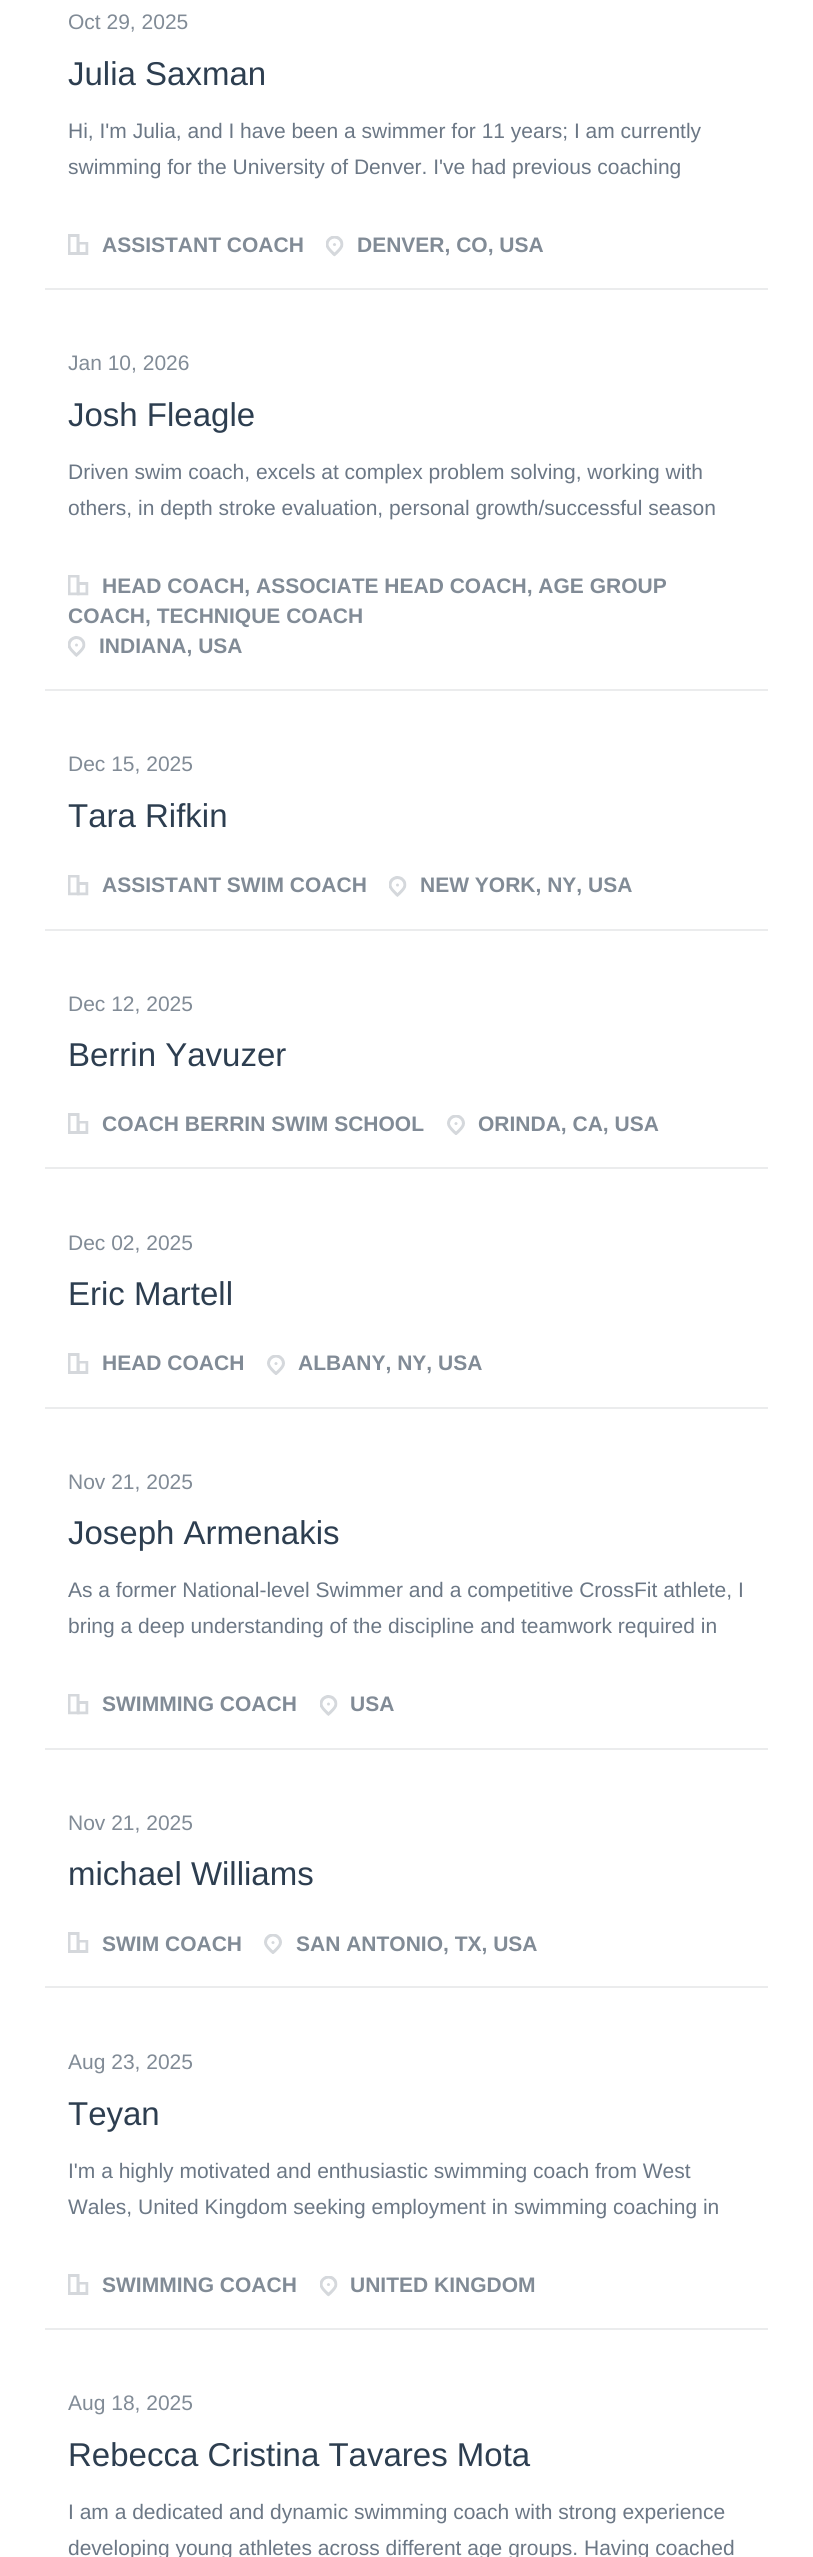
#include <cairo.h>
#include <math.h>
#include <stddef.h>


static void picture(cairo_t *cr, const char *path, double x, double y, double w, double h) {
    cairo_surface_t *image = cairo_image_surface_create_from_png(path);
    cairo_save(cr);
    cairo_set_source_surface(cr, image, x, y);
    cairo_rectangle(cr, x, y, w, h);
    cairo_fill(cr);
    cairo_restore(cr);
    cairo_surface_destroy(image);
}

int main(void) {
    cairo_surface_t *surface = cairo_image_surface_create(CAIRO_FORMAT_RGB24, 813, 2557);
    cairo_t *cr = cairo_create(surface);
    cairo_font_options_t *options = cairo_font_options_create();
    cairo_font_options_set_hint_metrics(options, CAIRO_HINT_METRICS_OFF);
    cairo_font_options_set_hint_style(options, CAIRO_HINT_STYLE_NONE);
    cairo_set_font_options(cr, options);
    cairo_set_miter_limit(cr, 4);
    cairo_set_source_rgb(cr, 1, 1, 1);
    cairo_paint(cr);
    cairo_set_source_rgb(cr, 0.918, 0.922, 0.929);
    cairo_rectangle(cr, 45, 288, 723, 2);
    cairo_fill(cr);
    cairo_select_font_face(cr, "Liberation Sans", CAIRO_FONT_SLANT_NORMAL, CAIRO_FONT_WEIGHT_NORMAL);
    cairo_set_font_size(cr, 21);
    cairo_set_source_rgb(cr, 0.506, 0.545, 0.588);
    cairo_move_to(cr, 68, 29);
    cairo_show_text(cr, "Oct 29, 2025");
    cairo_set_font_size(cr, 33);
    cairo_set_source_rgb(cr, 0.176, 0.243, 0.314);
    cairo_move_to(cr, 68, 85);
    cairo_show_text(cr, "Julia Saxman");
    cairo_set_font_size(cr, 21);
    cairo_set_source_rgb(cr, 0.42, 0.467, 0.522);
    cairo_move_to(cr, 68, 138);
    cairo_show_text(cr, "Hi, I'm Julia, and I have been a swimmer for 11 years; I am currently");
    cairo_move_to(cr, 68, 174);
    cairo_show_text(cr, "swimming for the University of Denver. I've had previous coaching");
    picture(cr, "img1.png", 68, 234, 21, 21);
    cairo_select_font_face(cr, "Liberation Sans", CAIRO_FONT_SLANT_NORMAL, CAIRO_FONT_WEIGHT_BOLD);
    cairo_set_source_rgb(cr, 0.506, 0.545, 0.588);
    cairo_move_to(cr, 102, 252);
    cairo_show_text(cr, "ASSISTANT COACH");
    picture(cr, "img2.png", 326, 236, 18, 21);
    cairo_move_to(cr, 357, 252);
    cairo_show_text(cr, "DENVER, CO, USA");
    cairo_set_source_rgb(cr, 0.918, 0.922, 0.929);
    cairo_rectangle(cr, 45, 689, 723, 2);
    cairo_fill(cr);
    cairo_select_font_face(cr, "Liberation Sans", CAIRO_FONT_SLANT_NORMAL, CAIRO_FONT_WEIGHT_NORMAL);
    cairo_set_source_rgb(cr, 0.506, 0.545, 0.588);
    cairo_move_to(cr, 68, 370);
    cairo_show_text(cr, "Jan 10, 2026");
    cairo_set_font_size(cr, 33);
    cairo_set_source_rgb(cr, 0.176, 0.243, 0.314);
    cairo_move_to(cr, 68, 426);
    cairo_show_text(cr, "Josh Fleagle");
    cairo_set_font_size(cr, 21);
    cairo_set_source_rgb(cr, 0.42, 0.467, 0.522);
    cairo_move_to(cr, 68, 479);
    cairo_show_text(cr, "Driven swim coach, excels at complex problem solving, working with");
    cairo_move_to(cr, 68, 515);
    cairo_show_text(cr, "others, in depth stroke evaluation, personal growth/successful season");
    picture(cr, "img3.png", 68, 575, 21, 21);
    cairo_select_font_face(cr, "Liberation Sans", CAIRO_FONT_SLANT_NORMAL, CAIRO_FONT_WEIGHT_BOLD);
    cairo_set_source_rgb(cr, 0.506, 0.545, 0.588);
    cairo_move_to(cr, 102, 593);
    cairo_show_text(cr, "HEAD COACH, ASSOCIATE HEAD COACH, AGE GROUP");
    cairo_move_to(cr, 68, 623);
    cairo_show_text(cr, "COACH, TECHNIQUE COACH");
    picture(cr, "img4.png", 68, 636, 18, 21);
    cairo_move_to(cr, 99, 653);
    cairo_show_text(cr, "INDIANA, USA");
    cairo_set_source_rgb(cr, 0.918, 0.922, 0.929);
    cairo_rectangle(cr, 45, 929, 723, 2);
    cairo_fill(cr);
    cairo_select_font_face(cr, "Liberation Sans", CAIRO_FONT_SLANT_NORMAL, CAIRO_FONT_WEIGHT_NORMAL);
    cairo_set_source_rgb(cr, 0.506, 0.545, 0.588);
    cairo_move_to(cr, 68, 771);
    cairo_show_text(cr, "Dec 15, 2025");
    cairo_set_font_size(cr, 33);
    cairo_set_source_rgb(cr, 0.176, 0.243, 0.314);
    cairo_move_to(cr, 68, 827);
    cairo_show_text(cr, "Tara Rifkin");
    picture(cr, "img3.png", 68, 875, 21, 21);
    cairo_select_font_face(cr, "Liberation Sans", CAIRO_FONT_SLANT_NORMAL, CAIRO_FONT_WEIGHT_BOLD);
    cairo_set_font_size(cr, 21);
    cairo_set_source_rgb(cr, 0.506, 0.545, 0.588);
    cairo_move_to(cr, 102, 892);
    cairo_show_text(cr, "ASSISTANT SWIM COACH");
    picture(cr, "img4.png", 389, 876, 18, 21);
    cairo_move_to(cr, 420, 892);
    cairo_show_text(cr, "NEW YORK, NY, USA");
    cairo_set_source_rgb(cr, 0.918, 0.922, 0.929);
    cairo_rectangle(cr, 45, 1167, 723, 2);
    cairo_fill(cr);
    cairo_select_font_face(cr, "Liberation Sans", CAIRO_FONT_SLANT_NORMAL, CAIRO_FONT_WEIGHT_NORMAL);
    cairo_set_source_rgb(cr, 0.506, 0.545, 0.588);
    cairo_move_to(cr, 68, 1011);
    cairo_show_text(cr, "Dec 12, 2025");
    cairo_set_font_size(cr, 33);
    cairo_set_source_rgb(cr, 0.176, 0.243, 0.314);
    cairo_move_to(cr, 68, 1066);
    cairo_show_text(cr, "Berrin Yavuzer");
    picture(cr, "img1.png", 68, 1113, 21, 21);
    cairo_select_font_face(cr, "Liberation Sans", CAIRO_FONT_SLANT_NORMAL, CAIRO_FONT_WEIGHT_BOLD);
    cairo_set_font_size(cr, 21);
    cairo_set_source_rgb(cr, 0.506, 0.545, 0.588);
    cairo_move_to(cr, 102, 1131);
    cairo_show_text(cr, "COACH BERRIN SWIM SCHOOL");
    picture(cr, "img5.png", 447, 1115, 18, 20);
    cairo_move_to(cr, 478, 1131);
    cairo_show_text(cr, "ORINDA, CA, USA");
    cairo_set_source_rgb(cr, 0.918, 0.922, 0.929);
    cairo_rectangle(cr, 45, 1407, 723, 2);
    cairo_fill(cr);
    cairo_select_font_face(cr, "Liberation Sans", CAIRO_FONT_SLANT_NORMAL, CAIRO_FONT_WEIGHT_NORMAL);
    cairo_set_source_rgb(cr, 0.506, 0.545, 0.588);
    cairo_move_to(cr, 68, 1250);
    cairo_show_text(cr, "Dec 02, 2025");
    cairo_set_font_size(cr, 33);
    cairo_set_source_rgb(cr, 0.176, 0.243, 0.314);
    cairo_move_to(cr, 68, 1305);
    cairo_show_text(cr, "Eric Martell");
    picture(cr, "img1.png", 68, 1353, 21, 21);
    cairo_select_font_face(cr, "Liberation Sans", CAIRO_FONT_SLANT_NORMAL, CAIRO_FONT_WEIGHT_BOLD);
    cairo_set_font_size(cr, 21);
    cairo_set_source_rgb(cr, 0.506, 0.545, 0.588);
    cairo_move_to(cr, 102, 1370);
    cairo_show_text(cr, "HEAD COACH");
    picture(cr, "img5.png", 267, 1355, 18, 20);
    cairo_move_to(cr, 298, 1370);
    cairo_show_text(cr, "ALBANY, NY, USA");
    cairo_set_source_rgb(cr, 0.918, 0.922, 0.929);
    cairo_rectangle(cr, 45, 1748, 723, 2);
    cairo_fill(cr);
    cairo_select_font_face(cr, "Liberation Sans", CAIRO_FONT_SLANT_NORMAL, CAIRO_FONT_WEIGHT_NORMAL);
    cairo_set_source_rgb(cr, 0.506, 0.545, 0.588);
    cairo_move_to(cr, 68, 1489);
    cairo_show_text(cr, "Nov 21, 2025");
    cairo_set_font_size(cr, 33);
    cairo_set_source_rgb(cr, 0.176, 0.243, 0.314);
    cairo_move_to(cr, 68, 1544);
    cairo_show_text(cr, "Joseph Armenakis");
    cairo_set_font_size(cr, 21);
    cairo_set_source_rgb(cr, 0.42, 0.467, 0.522);
    cairo_move_to(cr, 68, 1597);
    cairo_show_text(cr, "As a former National-level Swimmer and a competitive CrossFit athlete, I");
    cairo_move_to(cr, 68, 1633);
    cairo_show_text(cr, "bring a deep understanding of the discipline and teamwork required in");
    picture(cr, "img3.png", 68, 1694, 21, 21);
    cairo_select_font_face(cr, "Liberation Sans", CAIRO_FONT_SLANT_NORMAL, CAIRO_FONT_WEIGHT_BOLD);
    cairo_set_source_rgb(cr, 0.506, 0.545, 0.588);
    cairo_move_to(cr, 102, 1711);
    cairo_show_text(cr, "SWIMMING COACH");
    picture(cr, "img6.png", 320, 1695, 18, 21);
    cairo_move_to(cr, 350, 1711);
    cairo_show_text(cr, "USA");
    cairo_set_source_rgb(cr, 0.918, 0.922, 0.929);
    cairo_rectangle(cr, 45, 1986, 723, 2);
    cairo_fill(cr);
    cairo_select_font_face(cr, "Liberation Sans", CAIRO_FONT_SLANT_NORMAL, CAIRO_FONT_WEIGHT_NORMAL);
    cairo_set_source_rgb(cr, 0.506, 0.545, 0.588);
    cairo_move_to(cr, 68, 1830);
    cairo_show_text(cr, "Nov 21, 2025");
    cairo_set_font_size(cr, 33);
    cairo_set_source_rgb(cr, 0.176, 0.243, 0.314);
    cairo_move_to(cr, 68, 1885);
    cairo_show_text(cr, "michael Williams");
    picture(cr, "img1.png", 68, 1932, 21, 21);
    cairo_select_font_face(cr, "Liberation Sans", CAIRO_FONT_SLANT_NORMAL, CAIRO_FONT_WEIGHT_BOLD);
    cairo_set_font_size(cr, 21);
    cairo_set_source_rgb(cr, 0.506, 0.545, 0.588);
    cairo_move_to(cr, 102, 1951);
    cairo_show_text(cr, "SWIM COACH");
    picture(cr, "img5.png", 264, 1934, 18, 20);
    cairo_move_to(cr, 296, 1951);
    cairo_show_text(cr, "SAN ANTONIO, TX, USA");
    cairo_set_source_rgb(cr, 0.918, 0.922, 0.929);
    cairo_rectangle(cr, 45, 2328, 723, 2);
    cairo_fill(cr);
    cairo_select_font_face(cr, "Liberation Sans", CAIRO_FONT_SLANT_NORMAL, CAIRO_FONT_WEIGHT_NORMAL);
    cairo_set_source_rgb(cr, 0.506, 0.545, 0.588);
    cairo_move_to(cr, 68, 2069);
    cairo_show_text(cr, "Aug 23, 2025");
    cairo_set_font_size(cr, 33);
    cairo_set_source_rgb(cr, 0.176, 0.243, 0.314);
    cairo_move_to(cr, 68, 2125);
    cairo_show_text(cr, "Teyan");
    cairo_set_font_size(cr, 21);
    cairo_set_source_rgb(cr, 0.42, 0.467, 0.522);
    cairo_move_to(cr, 68, 2178);
    cairo_show_text(cr, "I'm a highly motivated and enthusiastic swimming coach from West");
    cairo_move_to(cr, 68, 2214);
    cairo_show_text(cr, "Wales, United Kingdom seeking employment in swimming coaching in");
    picture(cr, "img1.png", 68, 2274, 21, 21);
    cairo_select_font_face(cr, "Liberation Sans", CAIRO_FONT_SLANT_NORMAL, CAIRO_FONT_WEIGHT_BOLD);
    cairo_set_source_rgb(cr, 0.506, 0.545, 0.588);
    cairo_move_to(cr, 102, 2292);
    cairo_show_text(cr, "SWIMMING COACH");
    picture(cr, "img2.png", 320, 2276, 18, 21);
    cairo_move_to(cr, 350, 2292);
    cairo_show_text(cr, "UNITED KINGDOM");
    cairo_select_font_face(cr, "Liberation Sans", CAIRO_FONT_SLANT_NORMAL, CAIRO_FONT_WEIGHT_NORMAL);
    cairo_move_to(cr, 68, 2410);
    cairo_show_text(cr, "Aug 18, 2025");
    cairo_set_font_size(cr, 33);
    cairo_set_source_rgb(cr, 0.176, 0.243, 0.314);
    cairo_move_to(cr, 68, 2466);
    cairo_show_text(cr, "Rebecca Cristina Tavares Mota");
    cairo_set_font_size(cr, 21);
    cairo_set_source_rgb(cr, 0.42, 0.467, 0.522);
    cairo_move_to(cr, 68, 2519);
    cairo_show_text(cr, "I am a dedicated and dynamic swimming coach with strong experience");
    cairo_move_to(cr, 68, 2555);
    cairo_show_text(cr, "developing young athletes across different age groups. Having coached");
    cairo_surface_write_to_png(surface, "page.png");
    cairo_font_options_destroy(options);
    cairo_destroy(cr);
    cairo_surface_destroy(surface);
    return 0;
}
